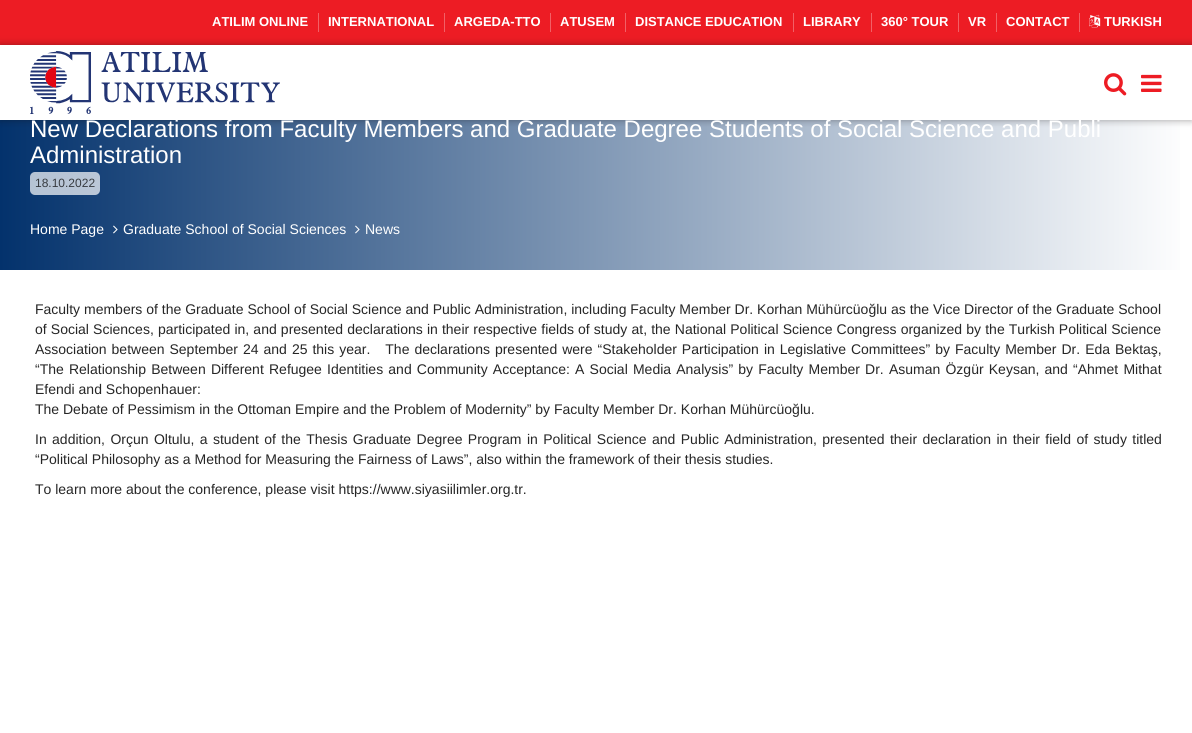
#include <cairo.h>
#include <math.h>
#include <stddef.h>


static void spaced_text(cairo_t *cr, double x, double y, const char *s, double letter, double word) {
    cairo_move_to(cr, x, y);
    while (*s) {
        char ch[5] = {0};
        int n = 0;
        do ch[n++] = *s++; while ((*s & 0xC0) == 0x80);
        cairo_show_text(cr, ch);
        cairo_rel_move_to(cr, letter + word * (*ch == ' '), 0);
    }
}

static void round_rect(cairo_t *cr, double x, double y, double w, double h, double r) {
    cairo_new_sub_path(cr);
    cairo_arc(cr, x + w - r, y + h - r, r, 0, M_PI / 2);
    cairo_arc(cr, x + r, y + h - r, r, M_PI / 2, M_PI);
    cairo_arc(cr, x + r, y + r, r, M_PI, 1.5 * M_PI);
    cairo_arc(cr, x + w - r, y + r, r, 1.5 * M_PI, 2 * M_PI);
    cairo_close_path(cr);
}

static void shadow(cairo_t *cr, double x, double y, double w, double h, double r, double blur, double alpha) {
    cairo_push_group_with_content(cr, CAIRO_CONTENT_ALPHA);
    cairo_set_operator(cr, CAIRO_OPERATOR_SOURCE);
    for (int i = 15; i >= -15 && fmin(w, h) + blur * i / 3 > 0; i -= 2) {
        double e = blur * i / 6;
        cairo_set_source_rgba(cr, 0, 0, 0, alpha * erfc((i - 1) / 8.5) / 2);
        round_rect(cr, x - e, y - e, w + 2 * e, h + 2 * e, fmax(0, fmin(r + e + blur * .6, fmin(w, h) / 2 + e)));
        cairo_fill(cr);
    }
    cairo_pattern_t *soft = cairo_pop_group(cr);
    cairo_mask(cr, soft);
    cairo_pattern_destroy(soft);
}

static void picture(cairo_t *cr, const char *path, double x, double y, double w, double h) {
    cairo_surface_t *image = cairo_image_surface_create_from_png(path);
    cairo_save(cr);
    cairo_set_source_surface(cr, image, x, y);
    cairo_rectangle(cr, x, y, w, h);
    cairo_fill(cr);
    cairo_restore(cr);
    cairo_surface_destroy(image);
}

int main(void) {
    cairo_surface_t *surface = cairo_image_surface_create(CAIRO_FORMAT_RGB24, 1192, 733);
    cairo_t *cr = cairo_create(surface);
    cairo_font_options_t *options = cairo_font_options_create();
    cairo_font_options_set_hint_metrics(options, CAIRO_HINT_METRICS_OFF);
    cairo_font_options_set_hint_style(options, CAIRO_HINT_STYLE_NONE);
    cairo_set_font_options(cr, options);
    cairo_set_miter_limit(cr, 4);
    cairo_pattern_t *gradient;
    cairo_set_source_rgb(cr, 1, 1, 1);
    cairo_paint(cr);
    cairo_set_source_rgb(cr, 0.929, 0.11, 0.141);
    cairo_rectangle(cr, 0, 0, 1192, 45);
    cairo_fill(cr);
    cairo_select_font_face(cr, "Liberation Sans", CAIRO_FONT_SLANT_NORMAL, CAIRO_FONT_WEIGHT_BOLD);
    cairo_set_font_size(cr, 13);
    cairo_set_source_rgb(cr, 1, 1, 1);
    cairo_move_to(cr, 212, 26);
    cairo_show_text(cr, "ATILIM ONLINE");
    cairo_set_source_rgb(cr, 0.949, 0.376, 0.4);
    cairo_rectangle(cr, 318, 13, 1, 19);
    cairo_fill(cr);
    cairo_set_source_rgb(cr, 1, 1, 1);
    cairo_move_to(cr, 328, 26);
    cairo_show_text(cr, "INTERNATIONAL");
    cairo_set_source_rgb(cr, 0.949, 0.376, 0.4);
    cairo_rectangle(cr, 444, 13, 1, 19);
    cairo_fill(cr);
    cairo_set_source_rgb(cr, 1, 1, 1);
    cairo_move_to(cr, 454, 26);
    cairo_show_text(cr, "ARGEDA-TTO");
    cairo_set_source_rgb(cr, 0.949, 0.376, 0.4);
    cairo_rectangle(cr, 550, 13, 1, 19);
    cairo_fill(cr);
    cairo_set_source_rgb(cr, 1, 1, 1);
    cairo_move_to(cr, 560, 26);
    cairo_show_text(cr, "ATUSEM");
    cairo_set_source_rgb(cr, 0.949, 0.376, 0.4);
    cairo_rectangle(cr, 625, 13, 1, 19);
    cairo_fill(cr);
    cairo_set_source_rgb(cr, 1, 1, 1);
    cairo_move_to(cr, 635, 26);
    cairo_show_text(cr, "DISTANCE EDUCATION");
    cairo_set_source_rgb(cr, 0.949, 0.376, 0.4);
    cairo_rectangle(cr, 793, 13, 1, 19);
    cairo_fill(cr);
    cairo_set_source_rgb(cr, 1, 1, 1);
    cairo_move_to(cr, 803, 26);
    cairo_show_text(cr, "LIBRARY");
    cairo_set_source_rgb(cr, 0.949, 0.376, 0.4);
    cairo_rectangle(cr, 871, 13, 1, 19);
    cairo_fill(cr);
    cairo_set_source_rgb(cr, 1, 1, 1);
    cairo_move_to(cr, 881, 26);
    cairo_show_text(cr, "360° TOUR");
    cairo_set_source_rgb(cr, 0.949, 0.376, 0.4);
    cairo_rectangle(cr, 958, 13, 1, 19);
    cairo_fill(cr);
    cairo_set_source_rgb(cr, 1, 1, 1);
    cairo_move_to(cr, 968, 26);
    cairo_show_text(cr, "VR");
    cairo_set_source_rgb(cr, 0.949, 0.376, 0.4);
    cairo_rectangle(cr, 996, 13, 1, 19);
    cairo_fill(cr);
    cairo_set_source_rgb(cr, 1, 1, 1);
    cairo_move_to(cr, 1006, 26);
    cairo_show_text(cr, "CONTACT");
    cairo_set_source_rgb(cr, 0.949, 0.376, 0.4);
    cairo_rectangle(cr, 1079, 13, 1, 19);
    cairo_fill(cr);
    picture(cr, "img1.png", 1089, 14, 12, 14);
    cairo_set_source_rgb(cr, 1, 1, 1);
    cairo_move_to(cr, 1104, 26);
    cairo_show_text(cr, "TURKISH");
    gradient = cairo_pattern_create_linear(0, 195, 1192, 195);
    cairo_pattern_add_color_stop_rgba(gradient, 0, 0.012, 0.196, 0.424, 1);
    cairo_pattern_add_color_stop_rgba(gradient, 1, 1, 1, 1, 1);
    cairo_set_source(cr, gradient);
    cairo_pattern_destroy(gradient);
    cairo_rectangle(cr, 0, 120, 1180, 150);
    cairo_fill(cr);
    cairo_save(cr);
    cairo_set_fill_rule(cr, CAIRO_FILL_RULE_EVEN_ODD);
    cairo_new_path(cr);
    cairo_move_to(cr, 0, 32);
    cairo_line_to(cr, 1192, 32);
    cairo_line_to(cr, 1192, 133);
    cairo_line_to(cr, 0, 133);
    cairo_close_path(cr);
    cairo_move_to(cr, 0, 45);
    cairo_line_to(cr, 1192, 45);
    cairo_line_to(cr, 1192, 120);
    cairo_line_to(cr, 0, 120);
    cairo_close_path(cr);
    cairo_clip(cr);
    cairo_set_source_rgb(cr, 0.078, 0.047, 0.047);
    shadow(cr, 0, 45, 1192, 75, 0, 4, 0.4);
    cairo_restore(cr);
    picture(cr, "img2.png", 30, 51, 250, 63);
    picture(cr, "img3.png", 1104, 73, 23, 23);
    picture(cr, "img4.png", 1141, 74, 21, 18);
    cairo_select_font_face(cr, "Liberation Sans", CAIRO_FONT_SLANT_NORMAL, CAIRO_FONT_WEIGHT_NORMAL);
    cairo_set_font_size(cr, 24);
    cairo_set_source_rgb(cr, 1, 1, 1);
    cairo_move_to(cr, 30, 137);
    cairo_show_text(cr, "New Declarations from Faculty Members and Graduate Degree Students of Social Science and Publi");
    cairo_move_to(cr, 30, 163);
    cairo_show_text(cr, "Administration");
    cairo_set_source_rgba(cr, 1, 1, 1, 0.7);
    round_rect(cr, 30, 172, 70, 23, 5);
    cairo_fill(cr);
    cairo_set_font_size(cr, 12);
    cairo_set_source_rgb(cr, 0.216, 0.231, 0.251);
    cairo_move_to(cr, 35, 187);
    cairo_show_text(cr, "18.10.2022");
    cairo_set_font_size(cr, 14);
    cairo_set_source_rgb(cr, 1, 1, 1);
    cairo_move_to(cr, 30, 234);
    cairo_show_text(cr, "Home Page");
    picture(cr, "img5.png", 113, 225, 5, 9);
    cairo_move_to(cr, 123, 234);
    cairo_show_text(cr, "Graduate School of Social Sciences");
    picture(cr, "img6.png", 355, 225, 5, 9);
    cairo_move_to(cr, 365, 234);
    cairo_show_text(cr, "News");
    cairo_set_source_rgb(cr, 0.149, 0.149, 0.149);
    cairo_move_to(cr, 35, 314);
    cairo_show_text(cr, "Faculty members of the Graduate School of Social Science and Public Administration, including Faculty Member Dr. Korhan Mühürcüoğlu as the Vice Director of the Graduate School");
    spaced_text(cr, 35, 334, "of Social Sciences, participated in, and presented declarations in their respective fields of study at, the National Political Science Congress organized by the Turkish Political Science", 0, 0.25);
    spaced_text(cr, 35, 354, "Association between September 24 and 25 this year.   The declarations presented were “Stakeholder Participation in Legislative Committees” by Faculty Member Dr. Eda Bektaş,", 0, 1.1);
    spaced_text(cr, 35, 374, "“The Relationship Between Different Refugee Identities and Community Acceptance: A Social Media Analysis” by Faculty Member Dr. Asuman Özgür Keysan, and “Ahmet Mithat", 0, 1.3);
    cairo_move_to(cr, 35, 394);
    cairo_show_text(cr, "Efendi and Schopenhauer:");
    cairo_move_to(cr, 35, 414);
    cairo_show_text(cr, "The Debate of Pessimism in the Ottoman Empire and the Problem of Modernity” by Faculty Member Dr. Korhan Mühürcüoğlu.");
    spaced_text(cr, 35, 444, "In addition, Orçun Oltulu, a student of the Thesis Graduate Degree Program in Political Science and Public Administration, presented their declaration in their field of study titled", 0, 1.5);
    cairo_move_to(cr, 35, 464);
    cairo_show_text(cr, "“Political Philosophy as a Method for Measuring the Fairness of Laws”, also within the framework of their thesis studies.");
    cairo_move_to(cr, 35, 494);
    cairo_show_text(cr, "To learn more about the conference, please visit https://www.siyasiilimler.org.tr.");
    cairo_surface_write_to_png(surface, "page.png");
    cairo_font_options_destroy(options);
    cairo_destroy(cr);
    cairo_surface_destroy(surface);
    return 0;
}
